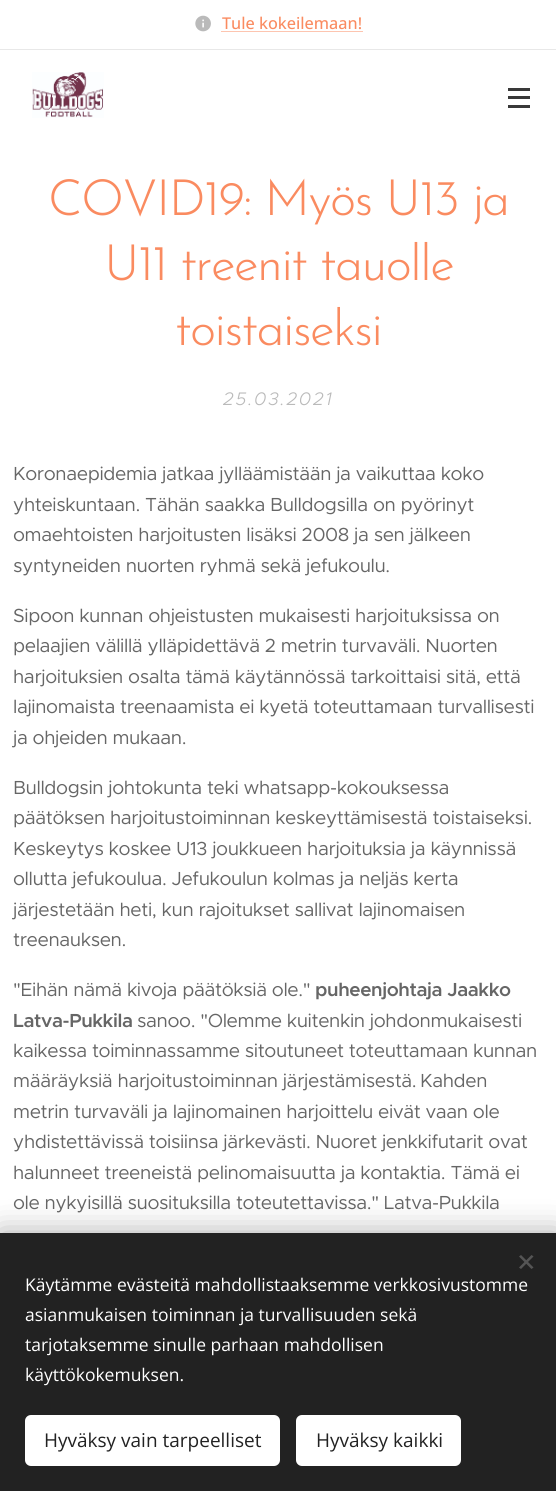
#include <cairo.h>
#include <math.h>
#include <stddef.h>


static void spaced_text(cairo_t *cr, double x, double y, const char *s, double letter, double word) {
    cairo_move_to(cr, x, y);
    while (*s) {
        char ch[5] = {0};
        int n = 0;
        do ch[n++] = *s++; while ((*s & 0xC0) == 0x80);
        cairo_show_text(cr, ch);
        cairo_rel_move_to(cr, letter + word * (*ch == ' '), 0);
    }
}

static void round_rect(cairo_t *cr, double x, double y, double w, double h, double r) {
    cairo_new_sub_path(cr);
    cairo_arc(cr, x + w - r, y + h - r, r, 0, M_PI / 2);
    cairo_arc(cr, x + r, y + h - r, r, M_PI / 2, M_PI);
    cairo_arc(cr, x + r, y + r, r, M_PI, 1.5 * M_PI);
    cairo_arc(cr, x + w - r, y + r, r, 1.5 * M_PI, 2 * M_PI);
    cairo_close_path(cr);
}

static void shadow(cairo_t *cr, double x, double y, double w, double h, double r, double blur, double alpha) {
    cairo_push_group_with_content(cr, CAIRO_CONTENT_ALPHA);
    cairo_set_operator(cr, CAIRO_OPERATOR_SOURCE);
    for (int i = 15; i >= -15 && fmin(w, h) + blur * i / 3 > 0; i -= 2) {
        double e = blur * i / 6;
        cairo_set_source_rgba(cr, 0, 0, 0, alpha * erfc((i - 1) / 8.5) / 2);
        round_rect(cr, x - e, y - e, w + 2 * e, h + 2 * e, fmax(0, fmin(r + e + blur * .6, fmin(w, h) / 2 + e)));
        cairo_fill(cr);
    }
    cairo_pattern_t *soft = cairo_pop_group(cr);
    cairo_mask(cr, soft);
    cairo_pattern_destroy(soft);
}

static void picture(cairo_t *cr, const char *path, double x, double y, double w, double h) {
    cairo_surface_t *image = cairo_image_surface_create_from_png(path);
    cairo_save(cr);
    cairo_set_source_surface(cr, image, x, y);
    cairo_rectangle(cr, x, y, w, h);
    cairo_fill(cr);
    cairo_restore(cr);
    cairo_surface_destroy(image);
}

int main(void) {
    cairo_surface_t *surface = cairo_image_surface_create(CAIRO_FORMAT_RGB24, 556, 1491);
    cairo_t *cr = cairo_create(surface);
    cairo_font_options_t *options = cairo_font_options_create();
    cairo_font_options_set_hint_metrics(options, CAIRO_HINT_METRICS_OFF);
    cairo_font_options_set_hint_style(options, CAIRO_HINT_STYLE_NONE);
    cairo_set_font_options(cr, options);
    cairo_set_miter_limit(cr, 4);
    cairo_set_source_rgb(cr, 1, 1, 1);
    cairo_paint(cr);
    picture(cr, "img1.png", 195, 15, 16, 17);
    cairo_select_font_face(cr, "Open Sans Medium", CAIRO_FONT_SLANT_NORMAL, CAIRO_FONT_WEIGHT_NORMAL);
    cairo_set_font_size(cr, 16.25);
    cairo_set_source_rgb(cr, 0.98, 0.545, 0.376);
    cairo_move_to(cr, 222, 29);
    cairo_show_text(cr, "Tule kokeilemaan!");
    cairo_set_source_rgb(cr, 0.992, 0.773, 0.69);
    cairo_rectangle(cr, 221, 31, 142, 1);
    cairo_fill(cr);
    cairo_set_source_rgb(cr, 0.91, 0.91, 0.91);
    cairo_rectangle(cr, 0, 49, 556, 1);
    cairo_fill(cr);
    picture(cr, "img2.png", 32, 72, 72, 46);
    cairo_set_source_rgb(cr, 0.224, 0.224, 0.224);
    cairo_rectangle(cr, 508, 96, 22, 3);
    cairo_fill(cr);
    cairo_rectangle(cr, 508, 88, 22, 3);
    cairo_fill(cr);
    cairo_rectangle(cr, 508, 105, 22, 3);
    cairo_fill(cr);
    cairo_select_font_face(cr, "Josefin Sans Light", CAIRO_FONT_SLANT_NORMAL, CAIRO_FONT_WEIGHT_NORMAL);
    cairo_set_font_size(cr, 50);
    cairo_set_source_rgb(cr, 0.98, 0.545, 0.376);
    spaced_text(cr, 48, 215, "COVID19: Myös U13 ja", -1.5, 0);
    spaced_text(cr, 104, 280, "U11 treenit tauolle", -1.5, 0);
    spaced_text(cr, 175, 345, "toistaiseksi", -1.5, 0);
    cairo_select_font_face(cr, "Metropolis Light", CAIRO_FONT_SLANT_ITALIC, CAIRO_FONT_WEIGHT_NORMAL);
    cairo_set_font_size(cr, 18.25);
    cairo_set_source_rgb(cr, 0.729, 0.729, 0.729);
    spaced_text(cr, 223, 405, "25.03.2021", 1.75, 0);
    cairo_select_font_face(cr, "Metropolis", CAIRO_FONT_SLANT_NORMAL, CAIRO_FONT_WEIGHT_NORMAL);
    cairo_set_font_size(cr, 19);
    cairo_set_source_rgb(cr, 0.4, 0.4, 0.4);
    spaced_text(cr, 13, 480, "Koronaepidemia jatkaa jylläämistään ja vaikuttaa koko", -0.38, 0);
    spaced_text(cr, 13, 511, "yhteiskuntaan. Tähän saakka Bulldogsilla on pyörinyt", -0.38, 0);
    spaced_text(cr, 13, 541, "omaehtoisten harjoitusten lisäksi 2008 ja sen jälkeen", -0.38, 0);
    spaced_text(cr, 13, 572, "syntyneiden nuorten ryhmä sekä jefukoulu.", -0.38, 0);
    spaced_text(cr, 13, 622, "Sipoon kunnan ohjeistusten mukaisesti harjoituksissa on", -0.38, 0);
    spaced_text(cr, 13, 652, "pelaajien välillä ylläpidettävä 2 metrin turvaväli. Nuorten", -0.38, 0);
    spaced_text(cr, 13, 683, "harjoituksien osalta tämä käytännössä tarkoittaisi sitä, että", -0.38, 0);
    spaced_text(cr, 13, 713, "lajinomaista treenaamista ei kyetä toteuttamaan turvallisesti", -0.38, 0);
    spaced_text(cr, 13, 744, "ja ohjeiden mukaan.", -0.38, 0);
    spaced_text(cr, 13, 794, "Bulldogsin johtokunta teki whatsapp-kokouksessa", -0.38, 0);
    spaced_text(cr, 13, 824, "päätöksen harjoitustoiminnan keskeyttämisestä toistaiseksi.", -0.38, 0);
    spaced_text(cr, 13, 855, "Keskeytys koskee U13 joukkueen harjoituksia ja käynnissä", -0.38, 0);
    spaced_text(cr, 13, 885, "ollutta jefukoulua. Jefukoulun kolmas ja neljäs kerta", -0.38, 0);
    spaced_text(cr, 13, 916, "järjestetään heti, kun rajoitukset sallivat lajinomaisen", -0.38, 0);
    spaced_text(cr, 13, 946, "treenauksen.", -0.38, 0);
    spaced_text(cr, 13, 996, "\"Eihän nämä kivoja päätöksiä ole.\"", -0.38, 0);
    cairo_select_font_face(cr, "Metropolis SemiBold", CAIRO_FONT_SLANT_NORMAL, CAIRO_FONT_WEIGHT_NORMAL);
    spaced_text(cr, 315, 996, "puheenjohtaja Jaakko", -0.38, 0);
    spaced_text(cr, 13, 1027, "Latva-Pukkila", -0.38, 0);
    cairo_select_font_face(cr, "Metropolis", CAIRO_FONT_SLANT_NORMAL, CAIRO_FONT_WEIGHT_NORMAL);
    spaced_text(cr, 137, 1027, "sanoo. \"Olemme kuitenkin johdonmukaisesti", -0.38, 0);
    spaced_text(cr, 13, 1057, "kaikessa toiminnassamme sitoutuneet toteuttamaan kunnan", -0.38, 0);
    spaced_text(cr, 13, 1087, "määräyksiä harjoitustoiminnan järjestämisestä.", -0.38, 0);
    spaced_text(cr, 420, 1087, "Kahden", -0.38, 0);
    spaced_text(cr, 13, 1118, "metrin turvaväli ja lajinomainen harjoittelu eivät vaan ole", -0.38, 0);
    spaced_text(cr, 13, 1148, "yhdistettävissä toisiinsa järkevästi. Nuoret jenkkifutarit ovat", -0.38, 0);
    spaced_text(cr, 13, 1179, "halunneet treeneistä pelinomaisuutta ja kontaktia. Tämä ei", -0.38, 0);
    spaced_text(cr, 13, 1209, "ole nykyisillä suosituksilla toteutettavissa.\" Latva-Pukkila", -0.38, 0);
    cairo_set_source_rgb(cr, 0, 0, 0);
    shadow(cr, 0, 1233, 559, 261, 0, 15.5, 0.33);
    cairo_set_source_rgb(cr, 0.133, 0.133, 0.133);
    cairo_rectangle(cr, 0, 1233, 556, 258);
    cairo_fill(cr);
    cairo_set_source_rgb(cr, 0.333, 0.333, 0.333);
    cairo_new_path(cr);
    cairo_move_to(cr, 519, 1267.5);
    cairo_line_to(cr, 531.5, 1255);
    cairo_line_to(cr, 533.5, 1256.5);
    cairo_line_to(cr, 521, 1269);
    cairo_close_path(cr);
    cairo_fill(cr);
    cairo_new_path(cr);
    cairo_move_to(cr, 521, 1255);
    cairo_line_to(cr, 533.5, 1267.5);
    cairo_line_to(cr, 531.5, 1269);
    cairo_line_to(cr, 519, 1256.5);
    cairo_close_path(cr);
    cairo_fill(cr);
    cairo_select_font_face(cr, "Open Sans", CAIRO_FONT_SLANT_NORMAL, CAIRO_FONT_WEIGHT_NORMAL);
    cairo_set_font_size(cr, 17.5);
    cairo_set_source_rgb(cr, 1, 1, 1);
    cairo_move_to(cr, 25, 1291);
    cairo_show_text(cr, "Käytämme evästeitä mahdollistaaksemme verkkosivustomme");
    cairo_move_to(cr, 25, 1321);
    cairo_show_text(cr, "asianmukaisen toiminnan ja turvallisuuden sekä");
    cairo_move_to(cr, 25, 1351);
    cairo_show_text(cr, "tarjotaksemme sinulle parhaan mahdollisen");
    cairo_move_to(cr, 25, 1381);
    cairo_show_text(cr, "käyttökokemuksen.");
    round_rect(cr, 25, 1415, 255, 51, 6);
    cairo_fill(cr);
    cairo_set_font_size(cr, 19);
    cairo_set_source_rgb(cr, 0.133, 0.133, 0.133);
    cairo_move_to(cr, 44, 1447);
    cairo_show_text(cr, "Hyväksy vain tarpeelliset");
    cairo_set_source_rgb(cr, 1, 1, 1);
    round_rect(cr, 296, 1415, 165, 51, 6);
    cairo_fill(cr);
    cairo_set_source_rgb(cr, 0.133, 0.133, 0.133);
    cairo_move_to(cr, 316, 1447);
    cairo_show_text(cr, "Hyväksy kaikki");
    cairo_surface_write_to_png(surface, "page.png");
    cairo_font_options_destroy(options);
    cairo_destroy(cr);
    cairo_surface_destroy(surface);
    return 0;
}
